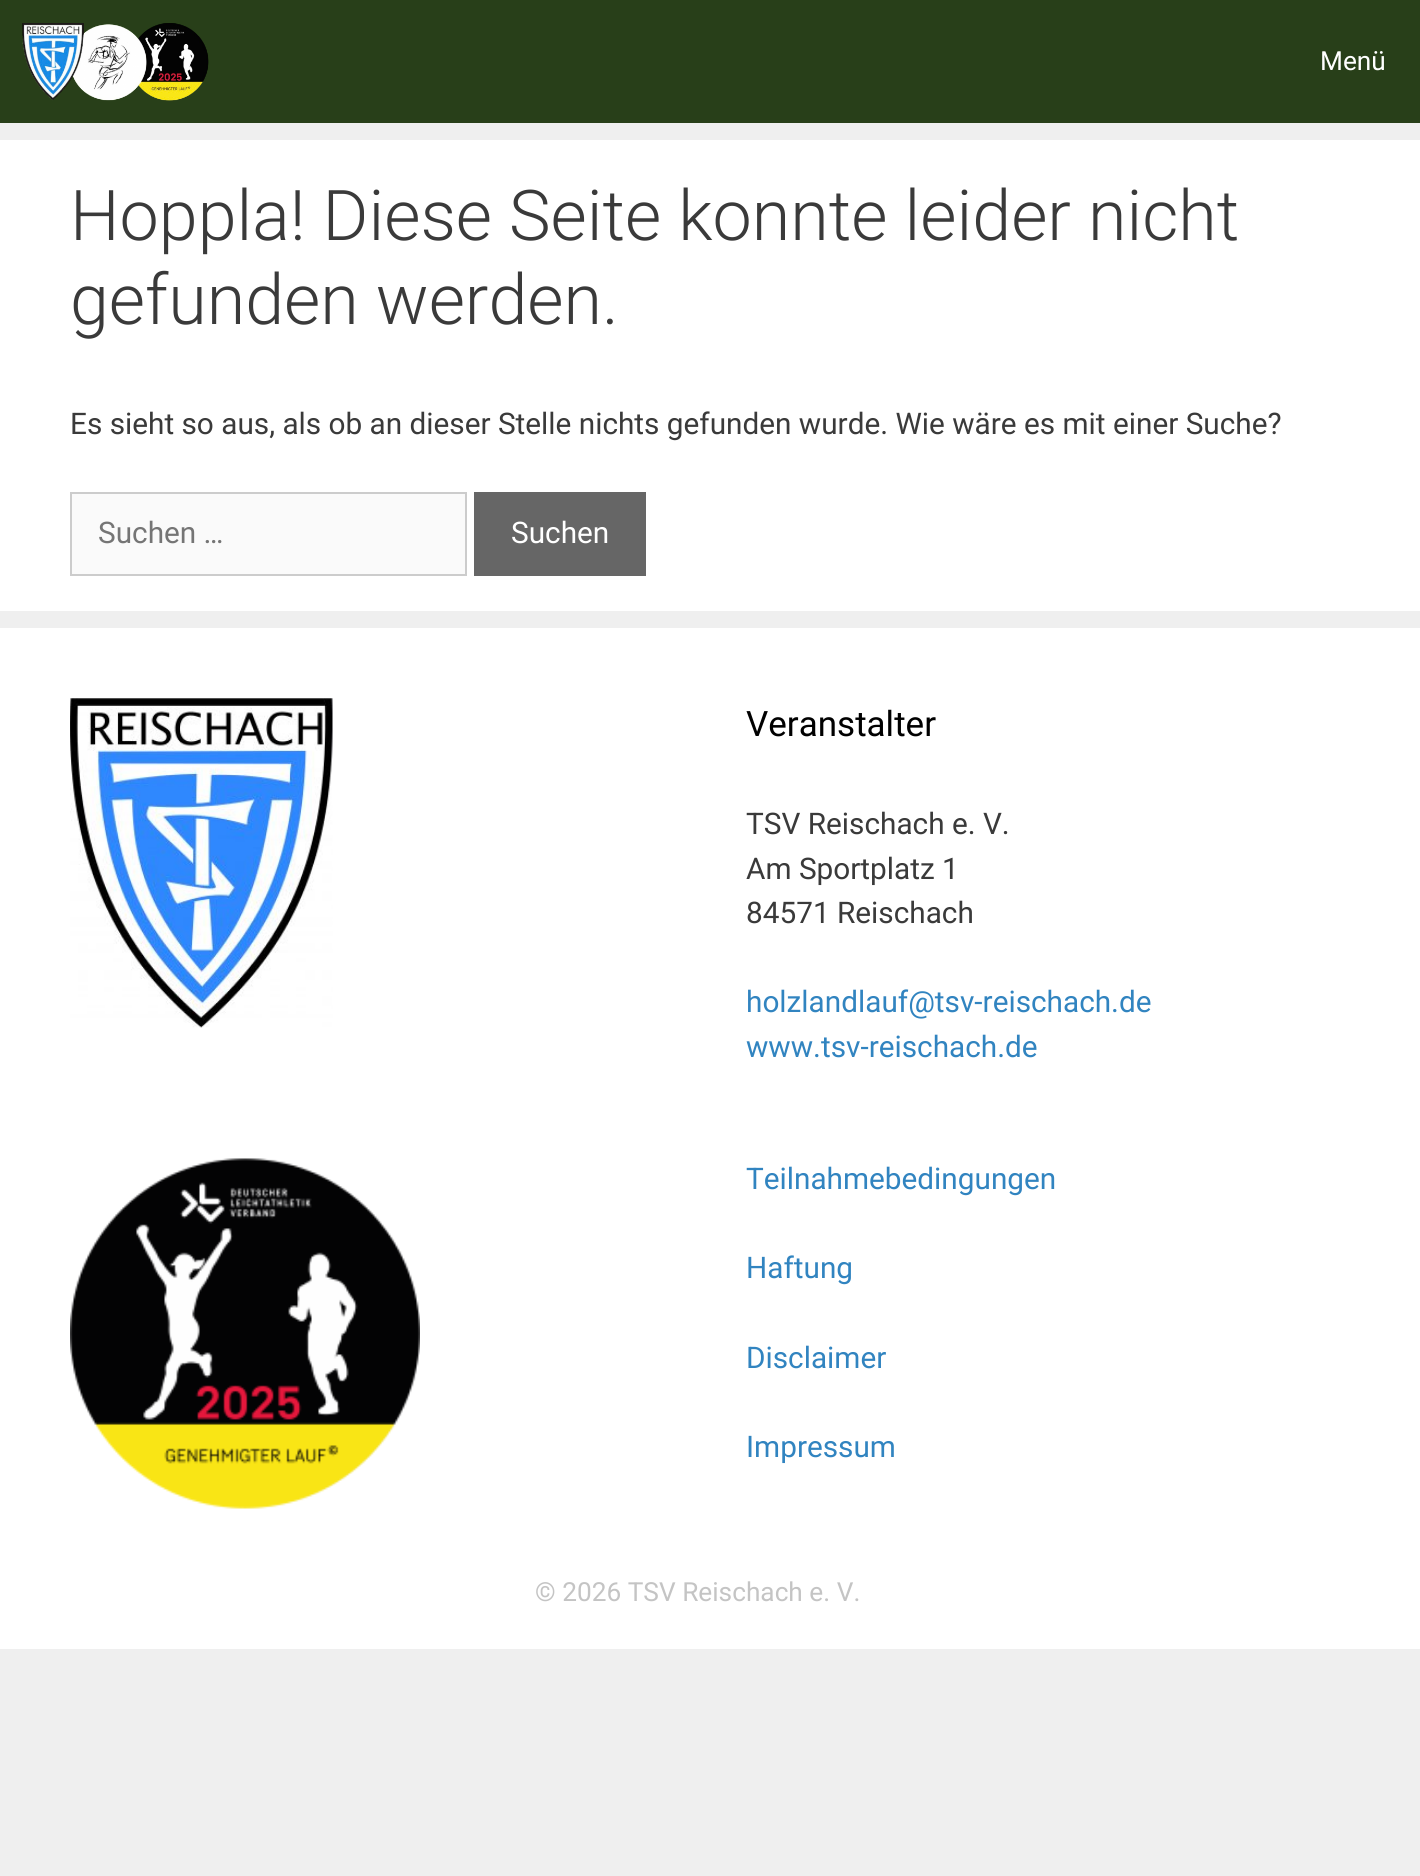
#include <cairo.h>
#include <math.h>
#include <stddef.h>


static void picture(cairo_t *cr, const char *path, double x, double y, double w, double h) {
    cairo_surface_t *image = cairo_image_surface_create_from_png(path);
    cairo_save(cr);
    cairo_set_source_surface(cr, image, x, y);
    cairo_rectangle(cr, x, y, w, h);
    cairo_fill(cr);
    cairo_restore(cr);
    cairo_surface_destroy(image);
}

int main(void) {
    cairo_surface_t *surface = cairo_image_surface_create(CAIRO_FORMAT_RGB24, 1420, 1876);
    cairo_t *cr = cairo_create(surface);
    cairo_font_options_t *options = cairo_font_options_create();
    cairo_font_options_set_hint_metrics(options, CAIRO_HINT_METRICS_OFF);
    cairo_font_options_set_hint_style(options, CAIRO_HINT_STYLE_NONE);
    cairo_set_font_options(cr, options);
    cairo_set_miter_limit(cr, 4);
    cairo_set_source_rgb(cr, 0.937, 0.937, 0.937);
    cairo_paint(cr);
    cairo_set_source_rgb(cr, 0.157, 0.247, 0.098);
    cairo_rectangle(cr, 0, 0, 1420, 123);
    cairo_fill(cr);
    picture(cr, "img1.png", 22, 23, 187, 78);
    cairo_select_font_face(cr, "Roboto", CAIRO_FONT_SLANT_NORMAL, CAIRO_FONT_WEIGHT_NORMAL);
    cairo_set_font_size(cr, 26.25);
    cairo_set_source_rgb(cr, 1, 1, 1);
    cairo_move_to(cr, 1320, 70);
    cairo_show_text(cr, "Menü");
    cairo_rectangle(cr, 0, 140, 1420, 471);
    cairo_fill(cr);
    cairo_select_font_face(cr, "Roboto Light", CAIRO_FONT_SLANT_NORMAL, CAIRO_FONT_WEIGHT_NORMAL);
    cairo_set_font_size(cr, 70);
    cairo_set_source_rgb(cr, 0.227, 0.227, 0.227);
    cairo_move_to(cr, 70, 240);
    cairo_show_text(cr, "Hoppla! Diese Seite konnte leider nicht");
    cairo_move_to(cr, 70, 324);
    cairo_show_text(cr, "gefunden werden.");
    cairo_select_font_face(cr, "Roboto", CAIRO_FONT_SLANT_NORMAL, CAIRO_FONT_WEIGHT_NORMAL);
    cairo_set_font_size(cr, 29.75);
    cairo_move_to(cr, 70, 434);
    cairo_show_text(cr, "Es sieht so aus, als ob an dieser Stelle nichts gefunden wurde. Wie wäre es mit einer Suche?");
    cairo_set_source_rgb(cr, 0.98, 0.98, 0.98);
    cairo_rectangle(cr, 71, 493, 395, 82);
    cairo_fill_preserve(cr);
    cairo_set_source_rgb(cr, 0.8, 0.8, 0.8);
    cairo_stroke(cr);
    cairo_set_source_rgb(cr, 0.459, 0.459, 0.459);
    cairo_move_to(cr, 98, 543);
    cairo_show_text(cr, "Suchen …");
    cairo_set_source_rgb(cr, 0.4, 0.4, 0.4);
    cairo_rectangle(cr, 474, 492, 172, 84);
    cairo_fill(cr);
    cairo_set_source_rgb(cr, 1, 1, 1);
    cairo_move_to(cr, 511, 543);
    cairo_show_text(cr, "Suchen");
    cairo_rectangle(cr, 0, 628, 1420, 1021);
    cairo_fill(cr);
    picture(cr, "img2.png", 70, 698, 263, 330);
    cairo_set_font_size(cr, 35);
    cairo_set_source_rgb(cr, 0, 0, 0);
    cairo_move_to(cr, 746, 736);
    cairo_show_text(cr, "Veranstalter");
    cairo_set_font_size(cr, 29.75);
    cairo_set_source_rgb(cr, 0.227, 0.227, 0.227);
    cairo_move_to(cr, 746, 834);
    cairo_show_text(cr, "TSV Reischach e. V.");
    cairo_move_to(cr, 746, 879);
    cairo_show_text(cr, "Am Sportplatz 1");
    cairo_move_to(cr, 746, 923);
    cairo_show_text(cr, "84571 Reischach");
    cairo_set_source_rgb(cr, 0.192, 0.518, 0.753);
    cairo_move_to(cr, 746, 1012);
    cairo_show_text(cr, "holzlandlauf@tsv-reischach.de");
    cairo_move_to(cr, 746, 1057);
    cairo_show_text(cr, "www.tsv-reischach.de");
    picture(cr, "img3.png", 70, 1158, 350, 351);
    cairo_move_to(cr, 746, 1189);
    cairo_show_text(cr, "Teilnahmebedingungen");
    cairo_move_to(cr, 746, 1278);
    cairo_show_text(cr, "Haftung");
    cairo_move_to(cr, 746, 1368);
    cairo_show_text(cr, "Disclaimer");
    cairo_move_to(cr, 746, 1457);
    cairo_show_text(cr, "Impressum");
    cairo_set_font_size(cr, 26.25);
    cairo_set_source_rgb(cr, 0.769, 0.769, 0.769);
    cairo_move_to(cr, 535, 1601);
    cairo_show_text(cr, "© 2026 TSV Reischach e. V.");
    cairo_surface_write_to_png(surface, "page.png");
    cairo_font_options_destroy(options);
    cairo_destroy(cr);
    cairo_surface_destroy(surface);
    return 0;
}
